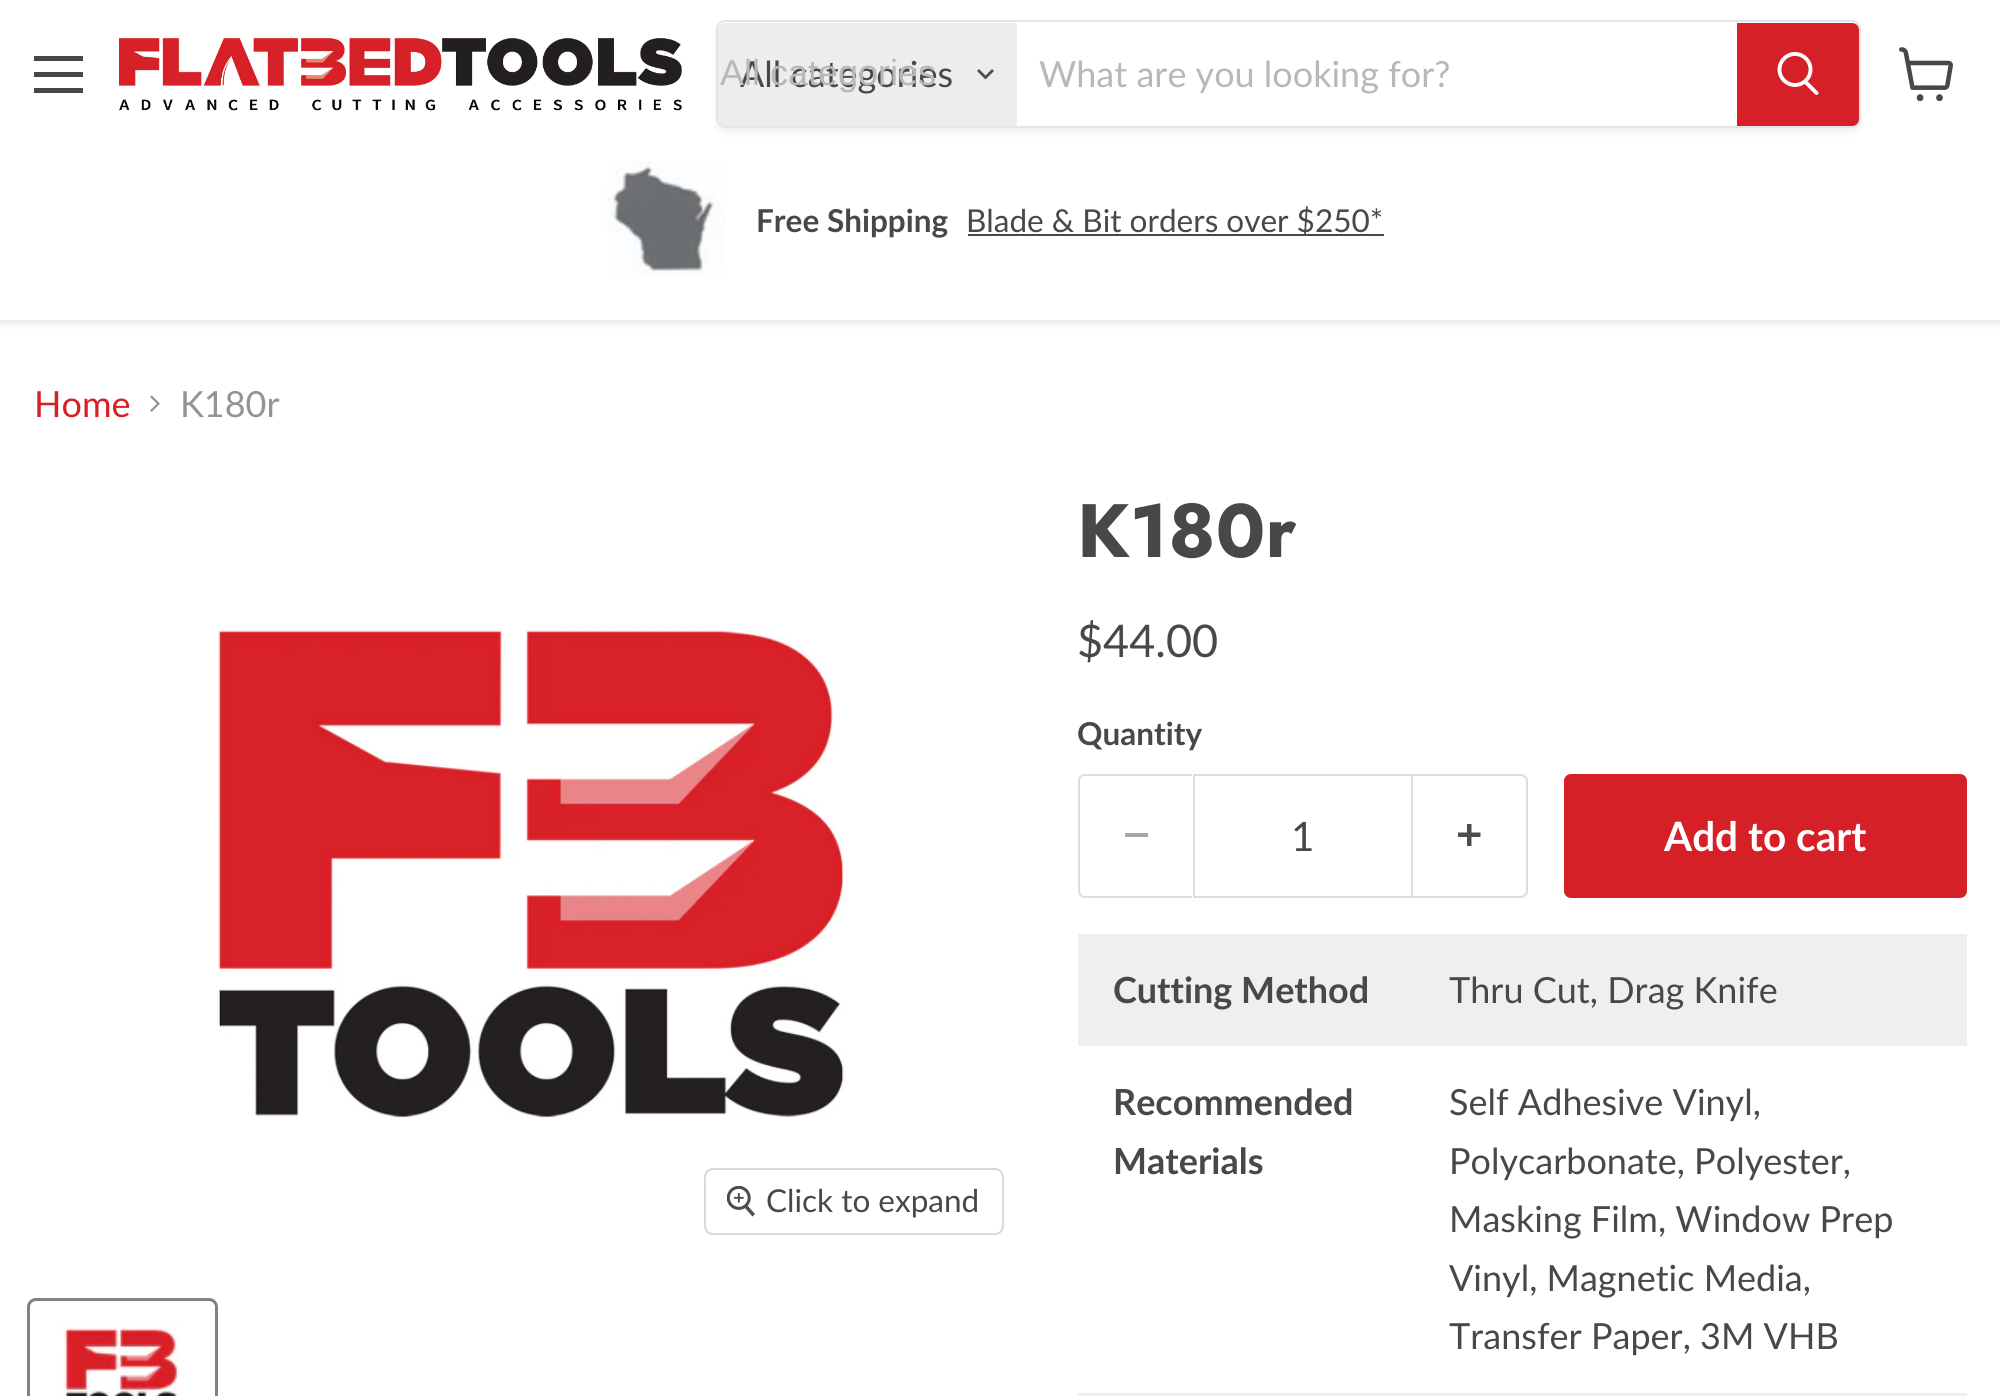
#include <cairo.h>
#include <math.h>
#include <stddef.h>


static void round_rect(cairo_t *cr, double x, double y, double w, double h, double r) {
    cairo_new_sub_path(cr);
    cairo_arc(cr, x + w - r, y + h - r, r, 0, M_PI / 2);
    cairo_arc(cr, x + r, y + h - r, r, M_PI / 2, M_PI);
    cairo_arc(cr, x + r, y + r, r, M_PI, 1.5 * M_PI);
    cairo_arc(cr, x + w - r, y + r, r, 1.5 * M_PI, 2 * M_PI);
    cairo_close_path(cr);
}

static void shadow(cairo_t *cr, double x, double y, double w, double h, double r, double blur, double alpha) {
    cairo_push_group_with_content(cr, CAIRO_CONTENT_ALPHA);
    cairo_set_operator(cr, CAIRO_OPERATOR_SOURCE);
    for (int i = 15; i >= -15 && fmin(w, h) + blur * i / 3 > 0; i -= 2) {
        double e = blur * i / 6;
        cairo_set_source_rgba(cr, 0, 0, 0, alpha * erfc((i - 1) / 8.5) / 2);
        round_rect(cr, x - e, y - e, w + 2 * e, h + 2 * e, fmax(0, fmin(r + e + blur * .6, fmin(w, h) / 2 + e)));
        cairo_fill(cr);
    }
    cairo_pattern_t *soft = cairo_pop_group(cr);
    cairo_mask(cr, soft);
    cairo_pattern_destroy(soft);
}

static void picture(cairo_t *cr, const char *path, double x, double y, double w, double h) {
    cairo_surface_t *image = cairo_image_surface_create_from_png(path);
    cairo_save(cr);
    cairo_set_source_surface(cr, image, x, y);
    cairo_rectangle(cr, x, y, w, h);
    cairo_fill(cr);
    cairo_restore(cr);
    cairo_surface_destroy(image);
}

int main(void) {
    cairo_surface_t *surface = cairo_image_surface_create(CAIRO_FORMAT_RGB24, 2000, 1396);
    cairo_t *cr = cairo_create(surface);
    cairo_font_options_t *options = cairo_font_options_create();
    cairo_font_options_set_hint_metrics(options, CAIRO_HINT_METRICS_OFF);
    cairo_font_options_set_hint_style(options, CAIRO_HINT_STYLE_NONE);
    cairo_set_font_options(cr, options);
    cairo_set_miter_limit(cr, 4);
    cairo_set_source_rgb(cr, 1, 1, 1);
    cairo_paint(cr);
    cairo_set_source_rgb(cr, 0.502, 0.502, 0.502);
    shadow(cr, 0, 2, 2000, 320, 0, 4.5, 0.25);
    cairo_set_source_rgb(cr, 1, 1, 1);
    cairo_rectangle(cr, 0, 0, 2000, 320);
    cairo_fill(cr);
    cairo_set_source_rgb(cr, 0.282, 0.282, 0.282);
    cairo_rectangle(cr, 34, 56, 49, 5);
    cairo_fill(cr);
    cairo_rectangle(cr, 34, 72, 49, 5);
    cairo_fill(cr);
    cairo_rectangle(cr, 34, 88, 49, 5);
    cairo_fill(cr);
    picture(cr, "img1.png", 119, 38, 563, 73);
    cairo_save(cr);
    cairo_set_fill_rule(cr, CAIRO_FILL_RULE_EVEN_ODD);
    cairo_new_path(cr);
    cairo_move_to(cr, 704, 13);
    cairo_line_to(cr, 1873, 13);
    cairo_line_to(cr, 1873, 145);
    cairo_line_to(cr, 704, 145);
    cairo_close_path(cr);
    cairo_move_to(cr, 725, 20);
    cairo_line_to(cr, 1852, 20);
    cairo_curve_to(cr, 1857, 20, 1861, 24, 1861, 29);
    cairo_line_to(cr, 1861, 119);
    cairo_curve_to(cr, 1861, 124, 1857, 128, 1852, 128);
    cairo_line_to(cr, 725, 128);
    cairo_curve_to(cr, 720, 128, 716, 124, 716, 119);
    cairo_line_to(cr, 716, 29);
    cairo_curve_to(cr, 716, 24, 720, 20, 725, 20);
    cairo_close_path(cr);
    cairo_clip(cr);
    cairo_set_source_rgb(cr, 0.502, 0.502, 0.502);
    shadow(cr, 716, 25, 1145, 108, 9, 3.5, 0.11);
    cairo_restore(cr);
    round_rect(cr, 717, 21, 1143, 106, 8);
    cairo_set_source_rgba(cr, 0.502, 0.502, 0.502, 0.2);
    cairo_stroke(cr);
    cairo_set_source_rgb(cr, 0.929, 0.929, 0.929);
    cairo_new_path(cr);
    cairo_move_to(cr, 725, 23);
    cairo_line_to(cr, 1017, 23);
    cairo_line_to(cr, 1017, 126);
    cairo_line_to(cr, 725, 126);
    cairo_curve_to(cr, 721, 126, 718, 123, 718, 119);
    cairo_line_to(cr, 718, 30);
    cairo_curve_to(cr, 718, 26, 721, 23, 725, 23);
    cairo_close_path(cr);
    cairo_fill(cr);
    cairo_select_font_face(cr, "Lato", CAIRO_FONT_SLANT_NORMAL, CAIRO_FONT_WEIGHT_NORMAL);
    cairo_set_font_size(cr, 36);
    cairo_set_source_rgb(cr, 0.282, 0.282, 0.282);
    cairo_move_to(cr, 740, 87);
    cairo_show_text(cr, "All categories");
    cairo_select_font_face(cr, "Liberation Sans", CAIRO_FONT_SLANT_NORMAL, CAIRO_FONT_WEIGHT_NORMAL);
    cairo_set_source_rgb(cr, 0.722, 0.722, 0.722);
    cairo_move_to(cr, 720, 85);
    cairo_show_text(cr, "All categories");
    cairo_new_path(cr);
    cairo_move_to(cr, 985.5, 77.5);
    cairo_line_to(cr, 992, 71);
    cairo_move_to(cr, 985.5, 77.5);
    cairo_line_to(cr, 979, 71);
    cairo_set_source_rgb(cr, 0.302, 0.302, 0.302);
    cairo_set_line_width(cr, 2.8);
    cairo_set_line_cap(cr, CAIRO_LINE_CAP_SQUARE);
    cairo_stroke(cr);
    cairo_select_font_face(cr, "Lato", CAIRO_FONT_SLANT_NORMAL, CAIRO_FONT_WEIGHT_NORMAL);
    cairo_set_source_rgb(cr, 0.722, 0.722, 0.722);
    cairo_move_to(cr, 1039, 87);
    cairo_show_text(cr, "What are you looking for?");
    cairo_set_source_rgb(cr, 0.835, 0.125, 0.153);
    cairo_new_path(cr);
    cairo_move_to(cr, 1738, 24);
    cairo_line_to(cr, 1852, 24);
    cairo_curve_to(cr, 1855.5, 24, 1858, 26.5, 1858, 30);
    cairo_line_to(cr, 1858, 119);
    cairo_curve_to(cr, 1858, 122.5, 1855.5, 125, 1852, 125);
    cairo_line_to(cr, 1738, 125);
    cairo_close_path(cr);
    cairo_fill_preserve(cr);
    cairo_set_line_width(cr, 2);
    cairo_set_line_cap(cr, CAIRO_LINE_CAP_BUTT);
    cairo_stroke(cr);
    cairo_new_path(cr);
    cairo_move_to(cr, 1816.5, 93);
    cairo_line_to(cr, 1805.5, 82);
    cairo_set_source_rgb(cr, 1, 1, 1);
    cairo_set_line_width(cr, 3.9);
    cairo_set_line_cap(cr, CAIRO_LINE_CAP_ROUND);
    cairo_stroke(cr);
    cairo_arc(cr, 1795, 69.5, 15.5, 0, 2 * M_PI);
    cairo_set_line_cap(cr, CAIRO_LINE_CAP_BUTT);
    cairo_stroke(cr);
    picture(cr, "img2.png", 607, 161, 119, 117);
    cairo_select_font_face(cr, "Lato", CAIRO_FONT_SLANT_NORMAL, CAIRO_FONT_WEIGHT_BOLD);
    cairo_set_font_size(cr, 31.5);
    cairo_set_source_rgb(cr, 0.282, 0.282, 0.282);
    cairo_move_to(cr, 756, 232);
    cairo_show_text(cr, "Free Shipping");
    cairo_rectangle(cr, 968, 234, 416, 2);
    cairo_fill(cr);
    cairo_select_font_face(cr, "Lato", CAIRO_FONT_SLANT_NORMAL, CAIRO_FONT_WEIGHT_NORMAL);
    cairo_move_to(cr, 966, 232);
    cairo_show_text(cr, "Blade & Bit orders over $250*");
    picture(cr, "img3.png", 1899, 47, 54, 54);
    cairo_set_font_size(cr, 36);
    cairo_set_source_rgb(cr, 0.835, 0.125, 0.153);
    cairo_move_to(cr, 34, 417);
    cairo_show_text(cr, "Home");
    picture(cr, "img4.png", 150, 395, 10, 17);
    cairo_set_source_rgb(cr, 0.58, 0.58, 0.58);
    cairo_move_to(cr, 180, 417);
    cairo_show_text(cr, "K180r");
    picture(cr, "img5.png", 218, 629, 627, 490);
    round_rect(cr, 705, 1169, 298, 65, 8);
    cairo_set_source_rgb(cr, 0.851, 0.851, 0.851);
    cairo_set_line_width(cr, 2);
    cairo_stroke(cr);
    cairo_set_source_rgba(cr, 1, 1, 1, 0.9);
    round_rect(cr, 707, 1170, 294, 63, 7);
    cairo_fill(cr);
    picture(cr, "img6.png", 727, 1186, 28, 31);
    cairo_set_font_size(cr, 31.5);
    cairo_set_source_rgb(cr, 0.282, 0.282, 0.282);
    cairo_move_to(cr, 766, 1212);
    cairo_show_text(cr, "Click to expand");
    round_rect(cr, 28.5, 1299.5, 188, 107, 7.5);
    cairo_set_source_rgb(cr, 0.506, 0.506, 0.506);
    cairo_set_line_width(cr, 3);
    cairo_stroke(cr);
    picture(cr, "img7.png", 62, 1320, 118, 76);
    cairo_select_font_face(cr, "Jost", CAIRO_FONT_SLANT_NORMAL, CAIRO_FONT_WEIGHT_BOLD);
    cairo_set_font_size(cr, 75.5);
    cairo_set_source_rgb(cr, 0.282, 0.282, 0.282);
    cairo_move_to(cr, 1077, 557);
    cairo_show_text(cr, "K180r");
    cairo_select_font_face(cr, "Lato", CAIRO_FONT_SLANT_NORMAL, CAIRO_FONT_WEIGHT_NORMAL);
    cairo_set_font_size(cr, 45);
    cairo_move_to(cr, 1077, 657);
    cairo_show_text(cr, "$44.00");
    cairo_select_font_face(cr, "Lato", CAIRO_FONT_SLANT_NORMAL, CAIRO_FONT_WEIGHT_BOLD);
    cairo_set_font_size(cr, 31.5);
    cairo_move_to(cr, 1077, 745);
    cairo_show_text(cr, "Quantity");
    cairo_set_source_rgb(cr, 0.867, 0.867, 0.867);
    cairo_set_fill_rule(cr, CAIRO_FILL_RULE_EVEN_ODD);
    cairo_new_path(cr);
    cairo_move_to(cr, 1084, 774);
    cairo_line_to(cr, 1192, 774);
    cairo_line_to(cr, 1192, 898);
    cairo_line_to(cr, 1084, 898);
    cairo_curve_to(cr, 1081, 898, 1078, 895, 1078, 891);
    cairo_line_to(cr, 1078, 781);
    cairo_curve_to(cr, 1078, 777, 1081, 774, 1084, 774);
    cairo_close_path(cr);
    cairo_move_to(cr, 1084, 776);
    cairo_line_to(cr, 1192, 776);
    cairo_line_to(cr, 1192, 896);
    cairo_line_to(cr, 1084, 896);
    cairo_curve_to(cr, 1082, 896, 1080, 893, 1080, 891);
    cairo_line_to(cr, 1080, 781);
    cairo_curve_to(cr, 1080, 778, 1082, 776, 1084, 776);
    cairo_close_path(cr);
    cairo_fill(cr);
    cairo_set_source_rgb(cr, 0.651, 0.651, 0.651);
    cairo_rectangle(cr, 1125, 833, 23, 4);
    cairo_fill(cr);
    cairo_rectangle(cr, 1194, 775, 218, 122);
    cairo_set_source_rgb(cr, 0.867, 0.867, 0.867);
    cairo_set_line_width(cr, 2);
    cairo_stroke(cr);
    cairo_select_font_face(cr, "Lato", CAIRO_FONT_SLANT_NORMAL, CAIRO_FONT_WEIGHT_NORMAL);
    cairo_set_font_size(cr, 40.5);
    cairo_set_source_rgb(cr, 0.282, 0.282, 0.282);
    cairo_move_to(cr, 1291, 851);
    cairo_show_text(cr, "1");
    cairo_set_source_rgb(cr, 0.867, 0.867, 0.867);
    cairo_new_path(cr);
    cairo_move_to(cr, 1413, 774);
    cairo_line_to(cr, 1521, 774);
    cairo_curve_to(cr, 1525, 774, 1528, 777, 1528, 781);
    cairo_line_to(cr, 1528, 891);
    cairo_curve_to(cr, 1528, 895, 1525, 898, 1521, 898);
    cairo_line_to(cr, 1413, 898);
    cairo_close_path(cr);
    cairo_move_to(cr, 1413, 776);
    cairo_line_to(cr, 1521, 776);
    cairo_curve_to(cr, 1523, 776, 1526, 778, 1526, 781);
    cairo_line_to(cr, 1526, 891);
    cairo_curve_to(cr, 1526, 893, 1523, 896, 1521, 896);
    cairo_line_to(cr, 1413, 896);
    cairo_close_path(cr);
    cairo_fill(cr);
    picture(cr, "img8.png", 1458, 824, 23, 22);
    cairo_set_source_rgb(cr, 0.835, 0.125, 0.153);
    round_rect(cr, 1565, 775, 401, 122, 6);
    cairo_fill_preserve(cr);
    cairo_stroke(cr);
    cairo_select_font_face(cr, "Lato", CAIRO_FONT_SLANT_NORMAL, CAIRO_FONT_WEIGHT_BOLD);
    cairo_set_source_rgb(cr, 1, 1, 1);
    cairo_move_to(cr, 1664, 851);
    cairo_show_text(cr, "Add to cart");
    cairo_set_source_rgb(cr, 0.937, 0.937, 0.937);
    cairo_rectangle(cr, 1078, 934, 889, 112);
    cairo_fill(cr);
    cairo_set_font_size(cr, 36);
    cairo_set_source_rgb(cr, 0.282, 0.282, 0.282);
    cairo_move_to(cr, 1113, 1003);
    cairo_show_text(cr, "Cutting Method");
    cairo_select_font_face(cr, "Lato", CAIRO_FONT_SLANT_NORMAL, CAIRO_FONT_WEIGHT_NORMAL);
    cairo_move_to(cr, 1449, 1003);
    cairo_show_text(cr, "Thru Cut, Drag Knife");
    cairo_select_font_face(cr, "Lato", CAIRO_FONT_SLANT_NORMAL, CAIRO_FONT_WEIGHT_BOLD);
    cairo_move_to(cr, 1113, 1115);
    cairo_show_text(cr, "Recommended");
    cairo_move_to(cr, 1113, 1174);
    cairo_show_text(cr, "Materials");
    cairo_select_font_face(cr, "Lato", CAIRO_FONT_SLANT_NORMAL, CAIRO_FONT_WEIGHT_NORMAL);
    cairo_move_to(cr, 1449, 1115);
    cairo_show_text(cr, "Self Adhesive Vinyl,");
    cairo_move_to(cr, 1449, 1174);
    cairo_show_text(cr, "Polycarbonate, Polyester,");
    cairo_move_to(cr, 1449, 1232);
    cairo_show_text(cr, "Masking Film, Window Prep");
    cairo_move_to(cr, 1449, 1291);
    cairo_show_text(cr, "Vinyl, Magnetic Media,");
    cairo_move_to(cr, 1449, 1349);
    cairo_show_text(cr, "Transfer Paper, 3M VHB");
    cairo_set_source_rgb(cr, 0.937, 0.937, 0.937);
    cairo_rectangle(cr, 1078, 1393, 889, 3);
    cairo_fill(cr);
    cairo_surface_write_to_png(surface, "page.png");
    cairo_font_options_destroy(options);
    cairo_destroy(cr);
    cairo_surface_destroy(surface);
    return 0;
}
